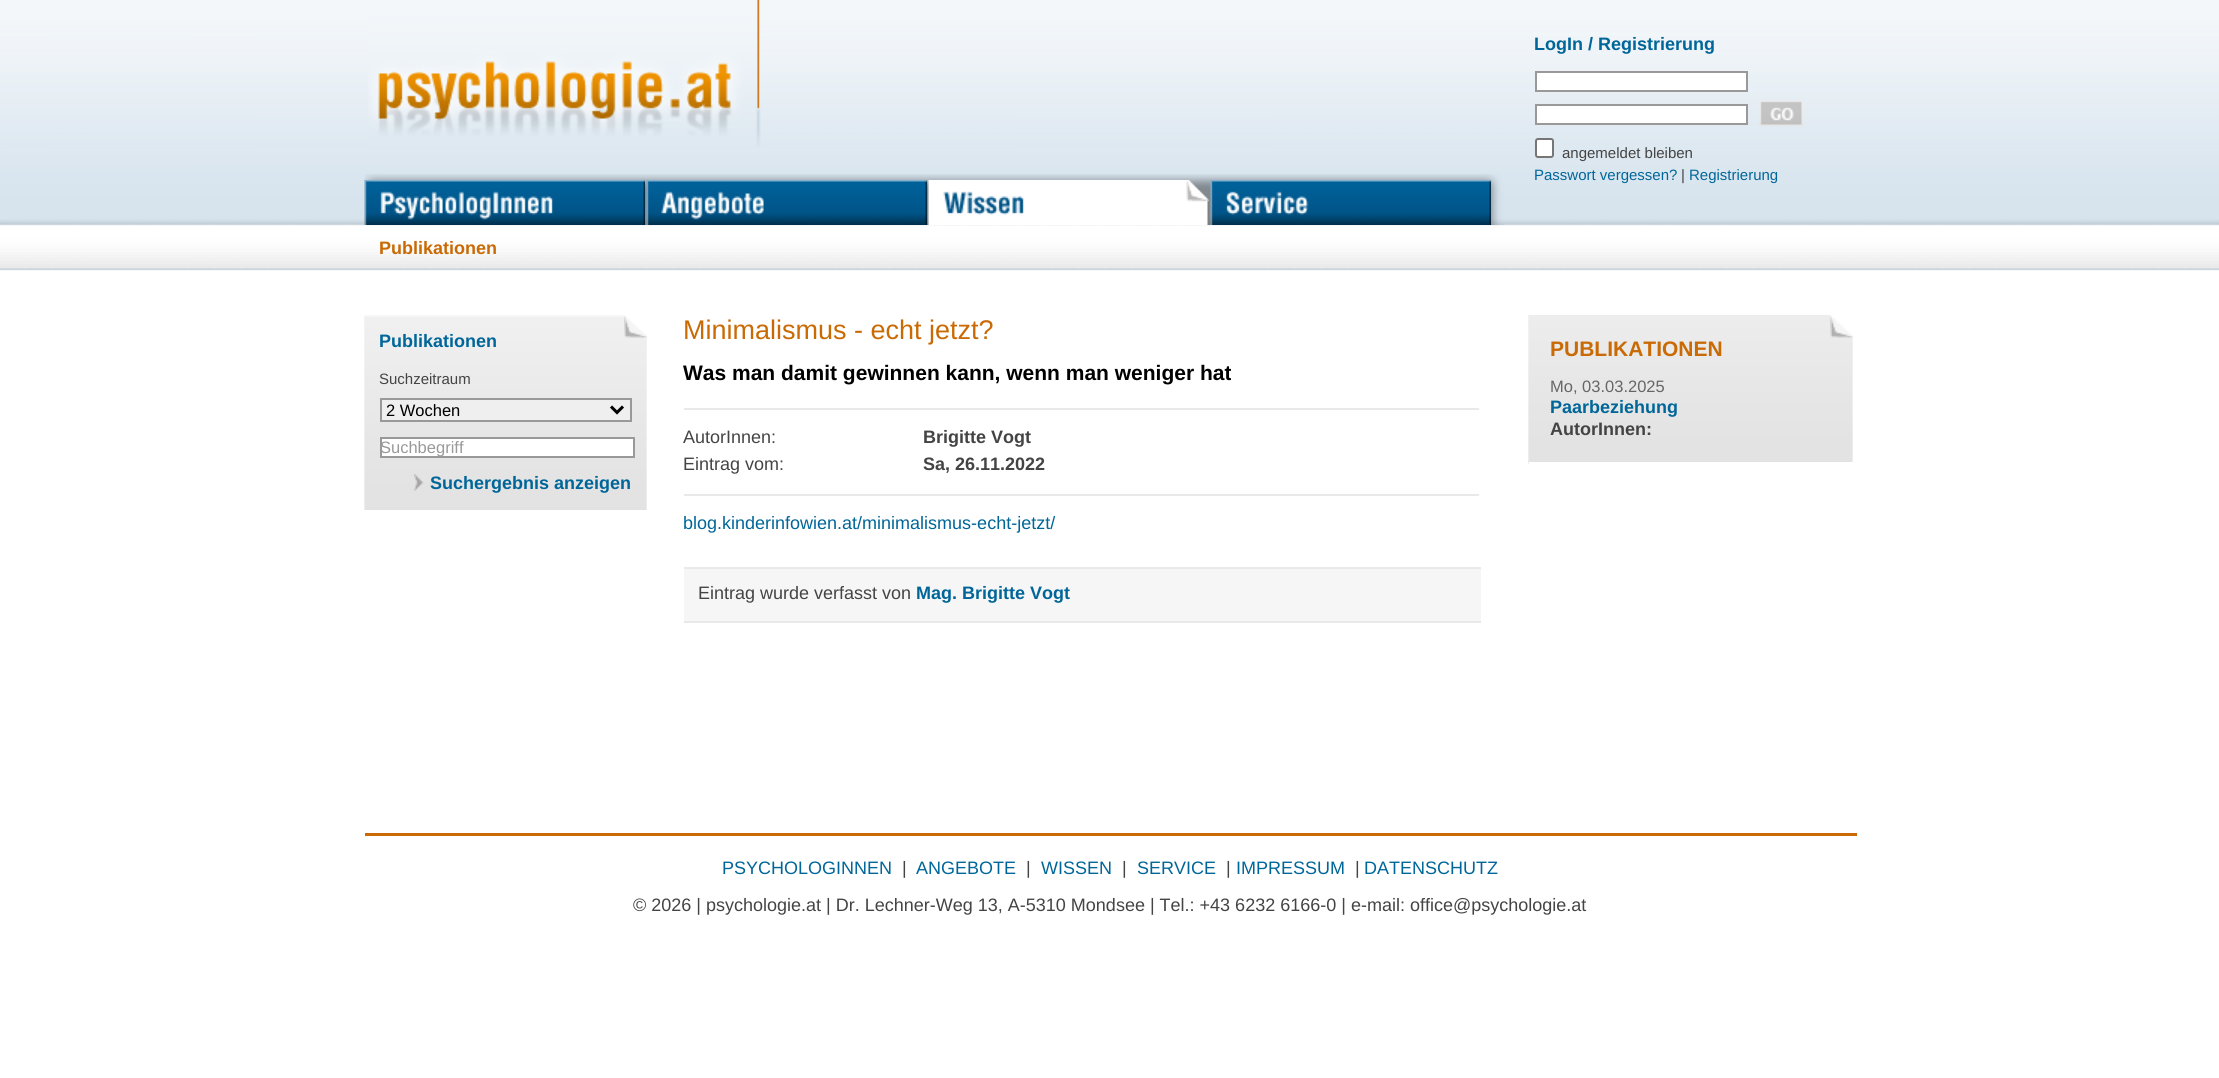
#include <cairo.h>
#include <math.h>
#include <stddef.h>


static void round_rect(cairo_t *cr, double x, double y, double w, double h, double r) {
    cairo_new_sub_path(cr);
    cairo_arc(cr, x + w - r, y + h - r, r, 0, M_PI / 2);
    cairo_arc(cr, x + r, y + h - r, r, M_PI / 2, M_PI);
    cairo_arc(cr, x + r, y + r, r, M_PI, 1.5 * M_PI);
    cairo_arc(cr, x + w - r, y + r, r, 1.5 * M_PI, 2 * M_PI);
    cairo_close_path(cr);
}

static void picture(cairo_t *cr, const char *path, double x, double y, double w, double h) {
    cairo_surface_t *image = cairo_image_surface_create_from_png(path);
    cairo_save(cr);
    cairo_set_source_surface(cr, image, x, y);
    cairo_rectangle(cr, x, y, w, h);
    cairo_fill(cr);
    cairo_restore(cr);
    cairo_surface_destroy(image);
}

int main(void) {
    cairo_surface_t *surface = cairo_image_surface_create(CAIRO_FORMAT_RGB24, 2219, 1078);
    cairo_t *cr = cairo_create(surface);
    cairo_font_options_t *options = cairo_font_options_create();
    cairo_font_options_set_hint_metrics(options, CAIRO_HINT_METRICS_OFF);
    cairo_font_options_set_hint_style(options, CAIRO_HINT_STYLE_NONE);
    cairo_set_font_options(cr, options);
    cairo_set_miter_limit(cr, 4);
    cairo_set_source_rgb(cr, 1, 1, 1);
    cairo_paint(cr);
    picture(cr, "img1.png", 0, 0, 2219, 271);
    cairo_select_font_face(cr, "Liberation Sans", CAIRO_FONT_SLANT_NORMAL, CAIRO_FONT_WEIGHT_BOLD);
    cairo_set_font_size(cr, 18);
    cairo_set_source_rgb(cr, 0, 0.4, 0.6);
    cairo_move_to(cr, 1534, 50);
    cairo_show_text(cr, "LogIn / Registrierung");
    cairo_set_source_rgb(cr, 1, 1, 1);
    cairo_rectangle(cr, 1536, 72, 211, 19);
    cairo_fill_preserve(cr);
    cairo_set_source_rgb(cr, 0.6, 0.6, 0.6);
    cairo_stroke(cr);
    cairo_set_source_rgb(cr, 1, 1, 1);
    cairo_rectangle(cr, 1536, 105, 211, 19);
    cairo_fill_preserve(cr);
    cairo_set_source_rgb(cr, 0.6, 0.6, 0.6);
    cairo_stroke(cr);
    picture(cr, "img2.png", 1759, 100, 44, 26);
    cairo_set_source_rgb(cr, 1, 1, 1);
    round_rect(cr, 1536, 139, 17, 18, 2);
    cairo_fill_preserve(cr);
    cairo_set_source_rgb(cr, 0.463, 0.463, 0.463);
    cairo_stroke(cr);
    cairo_select_font_face(cr, "Liberation Sans", CAIRO_FONT_SLANT_NORMAL, CAIRO_FONT_WEIGHT_NORMAL);
    cairo_set_font_size(cr, 15);
    cairo_set_source_rgb(cr, 0.267, 0.267, 0.267);
    cairo_move_to(cr, 1562, 158);
    cairo_show_text(cr, "angemeldet bleiben");
    cairo_set_source_rgb(cr, 0, 0.4, 0.6);
    cairo_move_to(cr, 1534, 180);
    cairo_show_text(cr, "Passwort vergessen?");
    cairo_set_source_rgb(cr, 0.267, 0.267, 0.267);
    cairo_move_to(cr, 1681, 180);
    cairo_show_text(cr, "|");
    cairo_set_source_rgb(cr, 0, 0.4, 0.6);
    cairo_move_to(cr, 1689, 180);
    cairo_show_text(cr, "Registrierung");
    picture(cr, "img3.png", 368, 0, 393, 147);
    picture(cr, "img4.png", 364, 174, 1141, 51);
    picture(cr, "img5.png", 364, 180, 281, 45);
    picture(cr, "img6.png", 646, 180, 281, 45);
    picture(cr, "img7.png", 928, 180, 281, 45);
    picture(cr, "img8.png", 1210, 180, 281, 45);
    cairo_select_font_face(cr, "Liberation Sans", CAIRO_FONT_SLANT_NORMAL, CAIRO_FONT_WEIGHT_BOLD);
    cairo_set_font_size(cr, 18);
    cairo_set_source_rgb(cr, 0.788, 0.416, 0.02);
    cairo_move_to(cr, 379, 254);
    cairo_show_text(cr, "Publikationen");
    cairo_set_source_rgb(cr, 0.961, 0.961, 0.961);
    cairo_rectangle(cr, 364, 315, 283, 195);
    cairo_fill(cr);
    picture(cr, "img9.png", 364, 317, 283, 193);
    picture(cr, "img10.png", 624, 315, 24, 23);
    cairo_set_source_rgb(cr, 0, 0.4, 0.6);
    cairo_move_to(cr, 379, 347);
    cairo_show_text(cr, "Publikationen");
    cairo_select_font_face(cr, "Liberation Sans", CAIRO_FONT_SLANT_NORMAL, CAIRO_FONT_WEIGHT_NORMAL);
    cairo_set_font_size(cr, 15);
    cairo_set_source_rgb(cr, 0.267, 0.267, 0.267);
    cairo_move_to(cr, 379, 384);
    cairo_show_text(cr, "Suchzeitraum");
    cairo_set_source_rgb(cr, 0.937, 0.937, 0.937);
    cairo_rectangle(cr, 381, 399, 250, 22);
    cairo_fill_preserve(cr);
    cairo_set_source_rgb(cr, 0.6, 0.6, 0.6);
    cairo_stroke(cr);
    cairo_new_path(cr);
    cairo_move_to(cr, 611, 406.5);
    cairo_line_to(cr, 617, 412.5);
    cairo_line_to(cr, 623, 406.5);
    cairo_set_source_rgb(cr, 0, 0, 0);
    cairo_set_line_width(cr, 3);
    cairo_stroke(cr);
    cairo_set_font_size(cr, 16.5);
    cairo_move_to(cr, 386, 416);
    cairo_show_text(cr, "2 Wochen");
    cairo_set_source_rgb(cr, 1, 1, 1);
    cairo_rectangle(cr, 381, 438, 253, 19);
    cairo_fill_preserve(cr);
    cairo_set_source_rgb(cr, 0.6, 0.6, 0.6);
    cairo_set_line_width(cr, 2);
    cairo_stroke(cr);
    cairo_save(cr);
    cairo_rectangle(cr, 381, 438, 252, 18);
    cairo_clip(cr);
    cairo_move_to(cr, 380, 453);
    cairo_show_text(cr, "Suchbegriff");
    cairo_restore(cr);
    picture(cr, "img11.png", 414, 474, 10, 17);
    cairo_select_font_face(cr, "Liberation Sans", CAIRO_FONT_SLANT_NORMAL, CAIRO_FONT_WEIGHT_BOLD);
    cairo_set_font_size(cr, 18);
    cairo_set_source_rgb(cr, 0, 0.4, 0.6);
    cairo_move_to(cr, 430, 489);
    cairo_show_text(cr, "Suchergebnis anzeigen");
    cairo_select_font_face(cr, "Liberation Sans", CAIRO_FONT_SLANT_NORMAL, CAIRO_FONT_WEIGHT_NORMAL);
    cairo_set_font_size(cr, 27);
    cairo_set_source_rgb(cr, 0.788, 0.416, 0.02);
    cairo_move_to(cr, 683, 339);
    cairo_show_text(cr, "Minimalismus - echt jetzt?");
    cairo_select_font_face(cr, "Liberation Sans", CAIRO_FONT_SLANT_NORMAL, CAIRO_FONT_WEIGHT_BOLD);
    cairo_set_font_size(cr, 21);
    cairo_set_source_rgb(cr, 0, 0, 0);
    cairo_move_to(cr, 683, 380);
    cairo_show_text(cr, "Was man damit gewinnen kann, wenn man weniger hat");
    cairo_set_source_rgb(cr, 0.914, 0.914, 0.914);
    cairo_rectangle(cr, 684, 408, 795, 2);
    cairo_fill(cr);
    cairo_rectangle(cr, 684, 494, 795, 2);
    cairo_fill(cr);
    cairo_select_font_face(cr, "Liberation Sans", CAIRO_FONT_SLANT_NORMAL, CAIRO_FONT_WEIGHT_NORMAL);
    cairo_set_font_size(cr, 18);
    cairo_set_source_rgb(cr, 0.267, 0.267, 0.267);
    cairo_move_to(cr, 683, 443);
    cairo_show_text(cr, "AutorInnen:");
    cairo_select_font_face(cr, "Liberation Sans", CAIRO_FONT_SLANT_NORMAL, CAIRO_FONT_WEIGHT_BOLD);
    cairo_move_to(cr, 923, 443);
    cairo_show_text(cr, "Brigitte Vogt");
    cairo_select_font_face(cr, "Liberation Sans", CAIRO_FONT_SLANT_NORMAL, CAIRO_FONT_WEIGHT_NORMAL);
    cairo_move_to(cr, 683, 470);
    cairo_show_text(cr, "Eintrag vom:");
    cairo_select_font_face(cr, "Liberation Sans", CAIRO_FONT_SLANT_NORMAL, CAIRO_FONT_WEIGHT_BOLD);
    cairo_move_to(cr, 923, 470);
    cairo_show_text(cr, "Sa, 26.11.2022");
    cairo_select_font_face(cr, "Liberation Sans", CAIRO_FONT_SLANT_NORMAL, CAIRO_FONT_WEIGHT_NORMAL);
    cairo_set_source_rgb(cr, 0, 0.4, 0.6);
    cairo_move_to(cr, 683, 529);
    cairo_show_text(cr, "blog.kinderinfowien.at/minimalismus-echt-jetzt/");
    cairo_set_source_rgb(cr, 0.961, 0.961, 0.961);
    cairo_rectangle(cr, 684, 569, 797, 52);
    cairo_fill(cr);
    cairo_set_source_rgb(cr, 0.914, 0.914, 0.914);
    cairo_rectangle(cr, 684, 567, 797, 2);
    cairo_fill(cr);
    cairo_rectangle(cr, 684, 621, 797, 2);
    cairo_fill(cr);
    cairo_set_source_rgb(cr, 0.267, 0.267, 0.267);
    cairo_move_to(cr, 698, 599);
    cairo_show_text(cr, "Eintrag wurde verfasst von");
    cairo_select_font_face(cr, "Liberation Sans", CAIRO_FONT_SLANT_NORMAL, CAIRO_FONT_WEIGHT_BOLD);
    cairo_set_source_rgb(cr, 0, 0.4, 0.6);
    cairo_move_to(cr, 916, 599);
    cairo_show_text(cr, "Mag. Brigitte Vogt");
    cairo_set_source_rgb(cr, 0.961, 0.961, 0.961);
    cairo_rectangle(cr, 1528, 315, 325, 149);
    cairo_fill(cr);
    picture(cr, "img12.png", 1528, 315, 325, 149);
    picture(cr, "img13.png", 1830, 315, 24, 23);
    cairo_set_font_size(cr, 21);
    cairo_set_source_rgb(cr, 0.788, 0.416, 0.02);
    cairo_move_to(cr, 1550, 356);
    cairo_show_text(cr, "PUBLIKATIONEN");
    cairo_set_source_rgb(cr, 1, 1, 1);
    cairo_rectangle(cr, 1529, 462, 324, 2);
    cairo_fill(cr);
    cairo_select_font_face(cr, "Liberation Sans", CAIRO_FONT_SLANT_NORMAL, CAIRO_FONT_WEIGHT_NORMAL);
    cairo_set_font_size(cr, 16.5);
    cairo_set_source_rgb(cr, 0.4, 0.4, 0.4);
    cairo_move_to(cr, 1550, 392);
    cairo_show_text(cr, "Mo, 03.03.2025");
    cairo_select_font_face(cr, "Liberation Sans", CAIRO_FONT_SLANT_NORMAL, CAIRO_FONT_WEIGHT_BOLD);
    cairo_set_font_size(cr, 18);
    cairo_set_source_rgb(cr, 0, 0.4, 0.6);
    cairo_move_to(cr, 1550, 413);
    cairo_show_text(cr, "Paarbeziehung");
    cairo_set_source_rgb(cr, 0.267, 0.267, 0.267);
    cairo_move_to(cr, 1550, 435);
    cairo_show_text(cr, "AutorInnen:");
    cairo_set_source_rgb(cr, 0.788, 0.416, 0.02);
    cairo_rectangle(cr, 365, 833, 1492, 3);
    cairo_fill(cr);
    cairo_select_font_face(cr, "Liberation Sans", CAIRO_FONT_SLANT_NORMAL, CAIRO_FONT_WEIGHT_NORMAL);
    cairo_set_source_rgb(cr, 0, 0.4, 0.6);
    cairo_move_to(cr, 722, 874);
    cairo_show_text(cr, "PSYCHOLOGINNEN");
    cairo_set_source_rgb(cr, 0.267, 0.267, 0.267);
    cairo_move_to(cr, 902, 874);
    cairo_show_text(cr, "|");
    cairo_set_source_rgb(cr, 0, 0.4, 0.6);
    cairo_move_to(cr, 916, 874);
    cairo_show_text(cr, "ANGEBOTE");
    cairo_set_source_rgb(cr, 0.267, 0.267, 0.267);
    cairo_move_to(cr, 1026, 874);
    cairo_show_text(cr, "|");
    cairo_set_source_rgb(cr, 0, 0.4, 0.6);
    cairo_move_to(cr, 1041, 874);
    cairo_show_text(cr, "WISSEN");
    cairo_set_source_rgb(cr, 0.267, 0.267, 0.267);
    cairo_move_to(cr, 1122, 874);
    cairo_show_text(cr, "|");
    cairo_set_source_rgb(cr, 0, 0.4, 0.6);
    cairo_move_to(cr, 1137, 874);
    cairo_show_text(cr, "SERVICE");
    cairo_set_source_rgb(cr, 0.267, 0.267, 0.267);
    cairo_move_to(cr, 1226, 874);
    cairo_show_text(cr, "|");
    cairo_set_source_rgb(cr, 0, 0.4, 0.6);
    cairo_move_to(cr, 1236, 874);
    cairo_show_text(cr, "IMPRESSUM");
    cairo_set_source_rgb(cr, 0.267, 0.267, 0.267);
    cairo_move_to(cr, 1355, 874);
    cairo_show_text(cr, "|");
    cairo_set_source_rgb(cr, 0, 0.4, 0.6);
    cairo_move_to(cr, 1364, 874);
    cairo_show_text(cr, "DATENSCHUTZ");
    cairo_set_source_rgb(cr, 0.267, 0.267, 0.267);
    cairo_move_to(cr, 633, 911);
    cairo_show_text(cr, "© 2026 | psychologie.at | Dr. Lechner-Weg 13, A-5310 Mondsee | Tel.: +43 6232 6166-0 | e-mail: office@psychologie.at");
    cairo_surface_write_to_png(surface, "page.png");
    cairo_font_options_destroy(options);
    cairo_destroy(cr);
    cairo_surface_destroy(surface);
    return 0;
}
